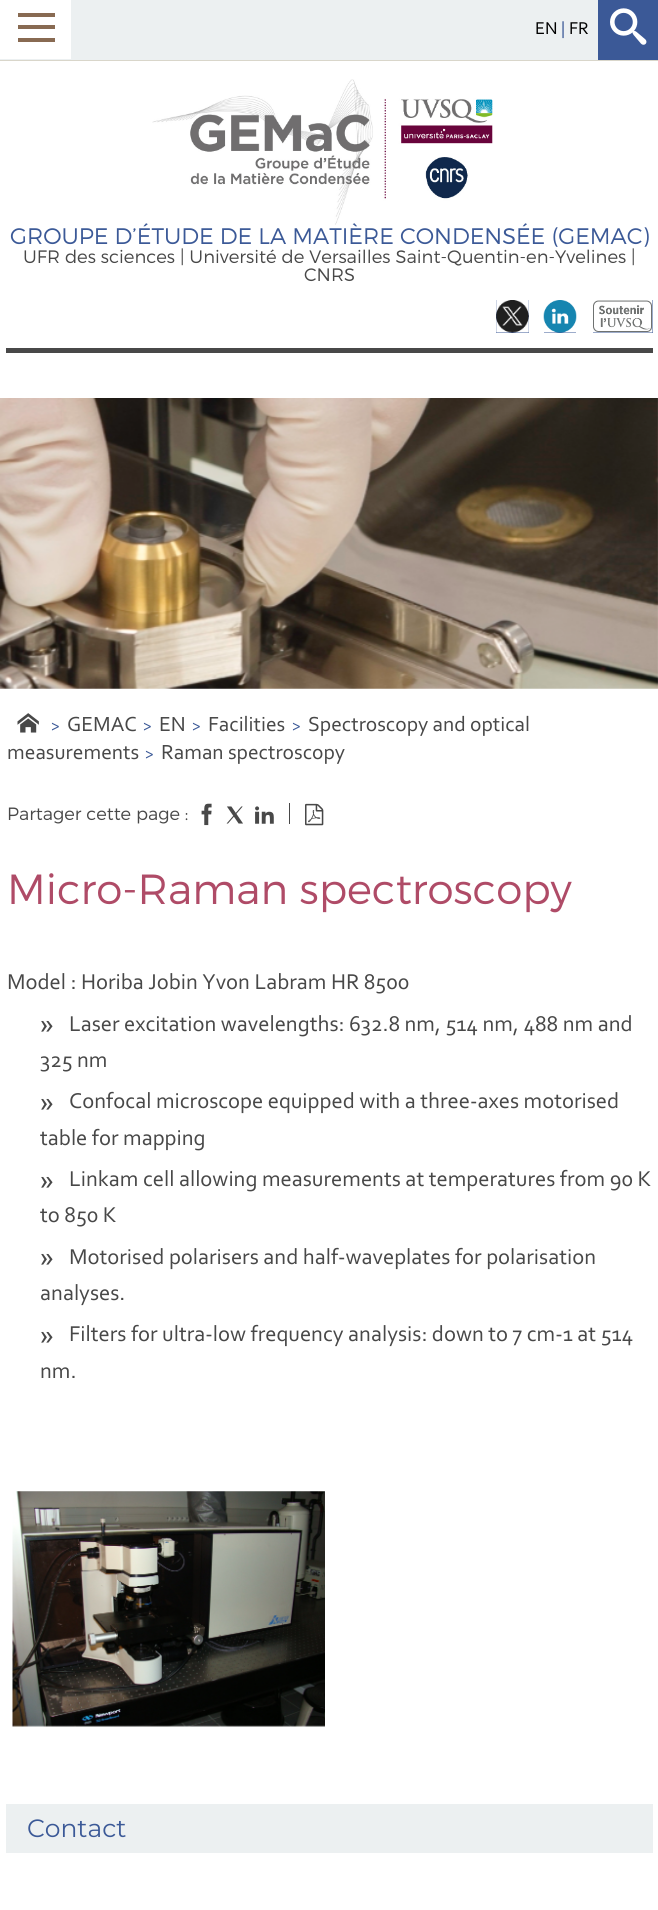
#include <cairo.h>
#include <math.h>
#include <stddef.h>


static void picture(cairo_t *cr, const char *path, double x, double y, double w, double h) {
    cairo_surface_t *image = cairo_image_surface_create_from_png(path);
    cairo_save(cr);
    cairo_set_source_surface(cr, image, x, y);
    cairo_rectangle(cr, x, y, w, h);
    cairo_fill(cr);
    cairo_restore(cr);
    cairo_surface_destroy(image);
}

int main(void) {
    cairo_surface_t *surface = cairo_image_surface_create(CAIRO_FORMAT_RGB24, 658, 1910);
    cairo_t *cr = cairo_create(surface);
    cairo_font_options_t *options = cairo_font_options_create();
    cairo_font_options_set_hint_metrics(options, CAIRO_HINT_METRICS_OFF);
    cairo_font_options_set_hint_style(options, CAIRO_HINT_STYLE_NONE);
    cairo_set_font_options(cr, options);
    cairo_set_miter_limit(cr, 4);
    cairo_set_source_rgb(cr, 1, 1, 1);
    cairo_paint(cr);
    cairo_set_source_rgb(cr, 0.925, 0.941, 0.945);
    cairo_rectangle(cr, 0, 0, 598, 60);
    cairo_fill(cr);
    cairo_set_source_rgb(cr, 0.851, 0.839, 0.792);
    cairo_rectangle(cr, 0, 60, 658, 1);
    cairo_fill(cr);
    cairo_set_source_rgb(cr, 1, 1, 1);
    cairo_rectangle(cr, 0, 0, 71, 59);
    cairo_fill(cr);
    cairo_set_source_rgb(cr, 0.533, 0.416, 0.322);
    cairo_rectangle(cr, 18, 25, 37, 4);
    cairo_fill(cr);
    cairo_rectangle(cr, 18, 13, 37, 4);
    cairo_fill(cr);
    cairo_rectangle(cr, 18, 38, 37, 4);
    cairo_fill(cr);
    cairo_select_font_face(cr, "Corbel", CAIRO_FONT_SLANT_NORMAL, CAIRO_FONT_WEIGHT_NORMAL);
    cairo_set_font_size(cr, 18);
    cairo_set_source_rgb(cr, 0, 0, 0);
    cairo_move_to(cr, 535, 34);
    cairo_show_text(cr, "EN");
    cairo_set_source_rgb(cr, 0.231, 0.349, 0.592);
    cairo_move_to(cr, 561, 34);
    cairo_show_text(cr, "|");
    cairo_set_source_rgb(cr, 0, 0, 0);
    cairo_move_to(cr, 569, 34);
    cairo_show_text(cr, "FR");
    cairo_set_source_rgb(cr, 0.231, 0.349, 0.592);
    cairo_rectangle(cr, 598, 0, 60, 60);
    cairo_fill(cr);
    picture(cr, "img1.png", 610, 8, 37, 37);
    cairo_set_source_rgb(cr, 0.282, 0.282, 0.282);
    cairo_rectangle(cr, 6, 348, 647, 5);
    cairo_fill(cr);
    picture(cr, "img2.png", 152, 79, 341, 146);
    cairo_select_font_face(cr, "Montserrat Light", CAIRO_FONT_SLANT_NORMAL, CAIRO_FONT_WEIGHT_NORMAL);
    cairo_set_font_size(cr, 22.5);
    cairo_set_source_rgb(cr, 0.231, 0.349, 0.592);
    cairo_move_to(cr, 10, 244);
    cairo_show_text(cr, "GROUPE D’ÉTUDE DE LA MATIÈRE CONDENSÉE (GEMAC)");
    cairo_set_font_size(cr, 18);
    cairo_set_source_rgb(cr, 0.282, 0.282, 0.282);
    cairo_move_to(cr, 23, 263);
    cairo_show_text(cr, "UFR des sciences | Université de Versailles Saint-Quentin-en-Yvelines |");
    cairo_move_to(cr, 304, 281);
    cairo_show_text(cr, "CNRS");
    cairo_set_source_rgb(cr, 0.231, 0.349, 0.592);
    cairo_rectangle(cr, 496, 300, 33, 33);
    cairo_fill(cr);
    picture(cr, "img3.png", 496, 300, 33, 33);
    cairo_rectangle(cr, 544, 332, 32, 1);
    cairo_fill(cr);
    picture(cr, "img4.png", 543, 300, 34, 33);
    cairo_rectangle(cr, 593, 300, 60, 33);
    cairo_fill(cr);
    picture(cr, "img5.png", 593, 300, 60, 33);
    picture(cr, "img6.png", 0, 398, 658, 291);
    picture(cr, "img7.png", 17, 713, 22, 20);
    cairo_select_font_face(cr, "Corbel", CAIRO_FONT_SLANT_NORMAL, CAIRO_FONT_WEIGHT_NORMAL);
    cairo_set_font_size(cr, 17);
    cairo_move_to(cr, 292, 731);
    cairo_show_text(cr, ">");
    cairo_set_font_size(cr, 21.4);
    cairo_set_source_rgb(cr, 0.282, 0.282, 0.282);
    cairo_move_to(cr, 308, 731);
    cairo_show_text(cr, "Spectroscopy and optical");
    cairo_move_to(cr, 7, 759);
    cairo_show_text(cr, "measurements");
    cairo_set_font_size(cr, 17);
    cairo_set_source_rgb(cr, 0.231, 0.349, 0.592);
    cairo_move_to(cr, 51, 731);
    cairo_show_text(cr, ">");
    cairo_set_font_size(cr, 21.4);
    cairo_set_source_rgb(cr, 0.282, 0.282, 0.282);
    cairo_move_to(cr, 67, 731);
    cairo_show_text(cr, "GEMAC");
    cairo_set_font_size(cr, 17);
    cairo_set_source_rgb(cr, 0.231, 0.349, 0.592);
    cairo_move_to(cr, 143, 731);
    cairo_show_text(cr, ">");
    cairo_set_font_size(cr, 21.4);
    cairo_set_source_rgb(cr, 0.282, 0.282, 0.282);
    cairo_move_to(cr, 159, 731);
    cairo_show_text(cr, "EN");
    cairo_set_font_size(cr, 17);
    cairo_set_source_rgb(cr, 0.231, 0.349, 0.592);
    cairo_move_to(cr, 192, 731);
    cairo_show_text(cr, ">");
    cairo_set_font_size(cr, 21.4);
    cairo_set_source_rgb(cr, 0.282, 0.282, 0.282);
    cairo_move_to(cr, 208, 731);
    cairo_show_text(cr, "Facilities");
    cairo_set_font_size(cr, 17);
    cairo_set_source_rgb(cr, 0.231, 0.349, 0.592);
    cairo_move_to(cr, 145, 759);
    cairo_show_text(cr, ">");
    cairo_set_font_size(cr, 21.4);
    cairo_set_source_rgb(cr, 0.282, 0.282, 0.282);
    cairo_move_to(cr, 161, 759);
    cairo_show_text(cr, "Raman spectroscopy");
    cairo_select_font_face(cr, "Montserrat Light", CAIRO_FONT_SLANT_NORMAL, CAIRO_FONT_WEIGHT_NORMAL);
    cairo_set_font_size(cr, 17.8);
    cairo_move_to(cr, 7, 820);
    cairo_show_text(cr, "Partager cette page :");
    picture(cr, "img8.png", 201, 803, 11, 23);
    picture(cr, "img9.png", 226, 806, 17, 18);
    picture(cr, "img10.png", 255, 806, 19, 18);
    cairo_rectangle(cr, 289, 803, 1, 21);
    cairo_fill(cr);
    picture(cr, "img11.png", 305, 803, 19, 23);
    cairo_set_font_size(cr, 42.1);
    cairo_set_source_rgb(cr, 0.686, 0.294, 0.404);
    cairo_move_to(cr, 7, 904);
    cairo_show_text(cr, "Micro-Raman spectroscopy");
    cairo_select_font_face(cr, "Corbel", CAIRO_FONT_SLANT_NORMAL, CAIRO_FONT_WEIGHT_NORMAL);
    cairo_set_font_size(cr, 22.5);
    cairo_set_source_rgb(cr, 0.282, 0.282, 0.282);
    cairo_move_to(cr, 7, 989);
    cairo_show_text(cr, "Model : Horiba Jobin Yvon Labram HR 8500");
    cairo_set_font_size(cr, 29);
    cairo_move_to(cr, 40, 1033);
    cairo_show_text(cr, "»");
    cairo_set_font_size(cr, 22.5);
    cairo_move_to(cr, 69, 1031);
    cairo_show_text(cr, "Laser excitation wavelengths: 632.8 nm, 514 nm, 488 nm and");
    cairo_move_to(cr, 40, 1067);
    cairo_show_text(cr, "325 nm");
    cairo_set_font_size(cr, 29);
    cairo_move_to(cr, 40, 1111);
    cairo_show_text(cr, "»");
    cairo_set_font_size(cr, 22.5);
    cairo_move_to(cr, 69, 1108);
    cairo_show_text(cr, "Confocal microscope equipped with a three-axes motorised");
    cairo_move_to(cr, 40, 1145);
    cairo_show_text(cr, "table for mapping");
    cairo_set_font_size(cr, 29);
    cairo_move_to(cr, 40, 1189);
    cairo_show_text(cr, "»");
    cairo_set_font_size(cr, 22.5);
    cairo_move_to(cr, 69, 1186);
    cairo_show_text(cr, "Linkam cell allowing measurements at temperatures from 90 K");
    cairo_move_to(cr, 40, 1222);
    cairo_show_text(cr, "to 850 K");
    cairo_set_font_size(cr, 29);
    cairo_move_to(cr, 40, 1266);
    cairo_show_text(cr, "»");
    cairo_set_font_size(cr, 22.5);
    cairo_move_to(cr, 69, 1264);
    cairo_show_text(cr, "Motorised polarisers and half-waveplates for polarisation");
    cairo_move_to(cr, 40, 1300);
    cairo_show_text(cr, "analyses.");
    cairo_set_font_size(cr, 29);
    cairo_move_to(cr, 40, 1344);
    cairo_show_text(cr, "»");
    cairo_set_font_size(cr, 22.5);
    cairo_move_to(cr, 69, 1341);
    cairo_show_text(cr, "Filters for ultra-low frequency analysis: down to 7 cm-1 at 514");
    cairo_move_to(cr, 40, 1378);
    cairo_show_text(cr, "nm.");
    picture(cr, "img12.png", 12, 1491, 313, 236);
    cairo_set_source_rgb(cr, 0.925, 0.941, 0.945);
    cairo_rectangle(cr, 6, 1804, 647, 49);
    cairo_fill(cr);
    cairo_select_font_face(cr, "Montserrat Thin", CAIRO_FONT_SLANT_NORMAL, CAIRO_FONT_WEIGHT_NORMAL);
    cairo_set_font_size(cr, 25);
    cairo_set_source_rgb(cr, 0.231, 0.349, 0.592);
    cairo_move_to(cr, 27, 1837);
    cairo_show_text(cr, "Contact");
    cairo_surface_write_to_png(surface, "page.png");
    cairo_font_options_destroy(options);
    cairo_destroy(cr);
    cairo_surface_destroy(surface);
    return 0;
}
